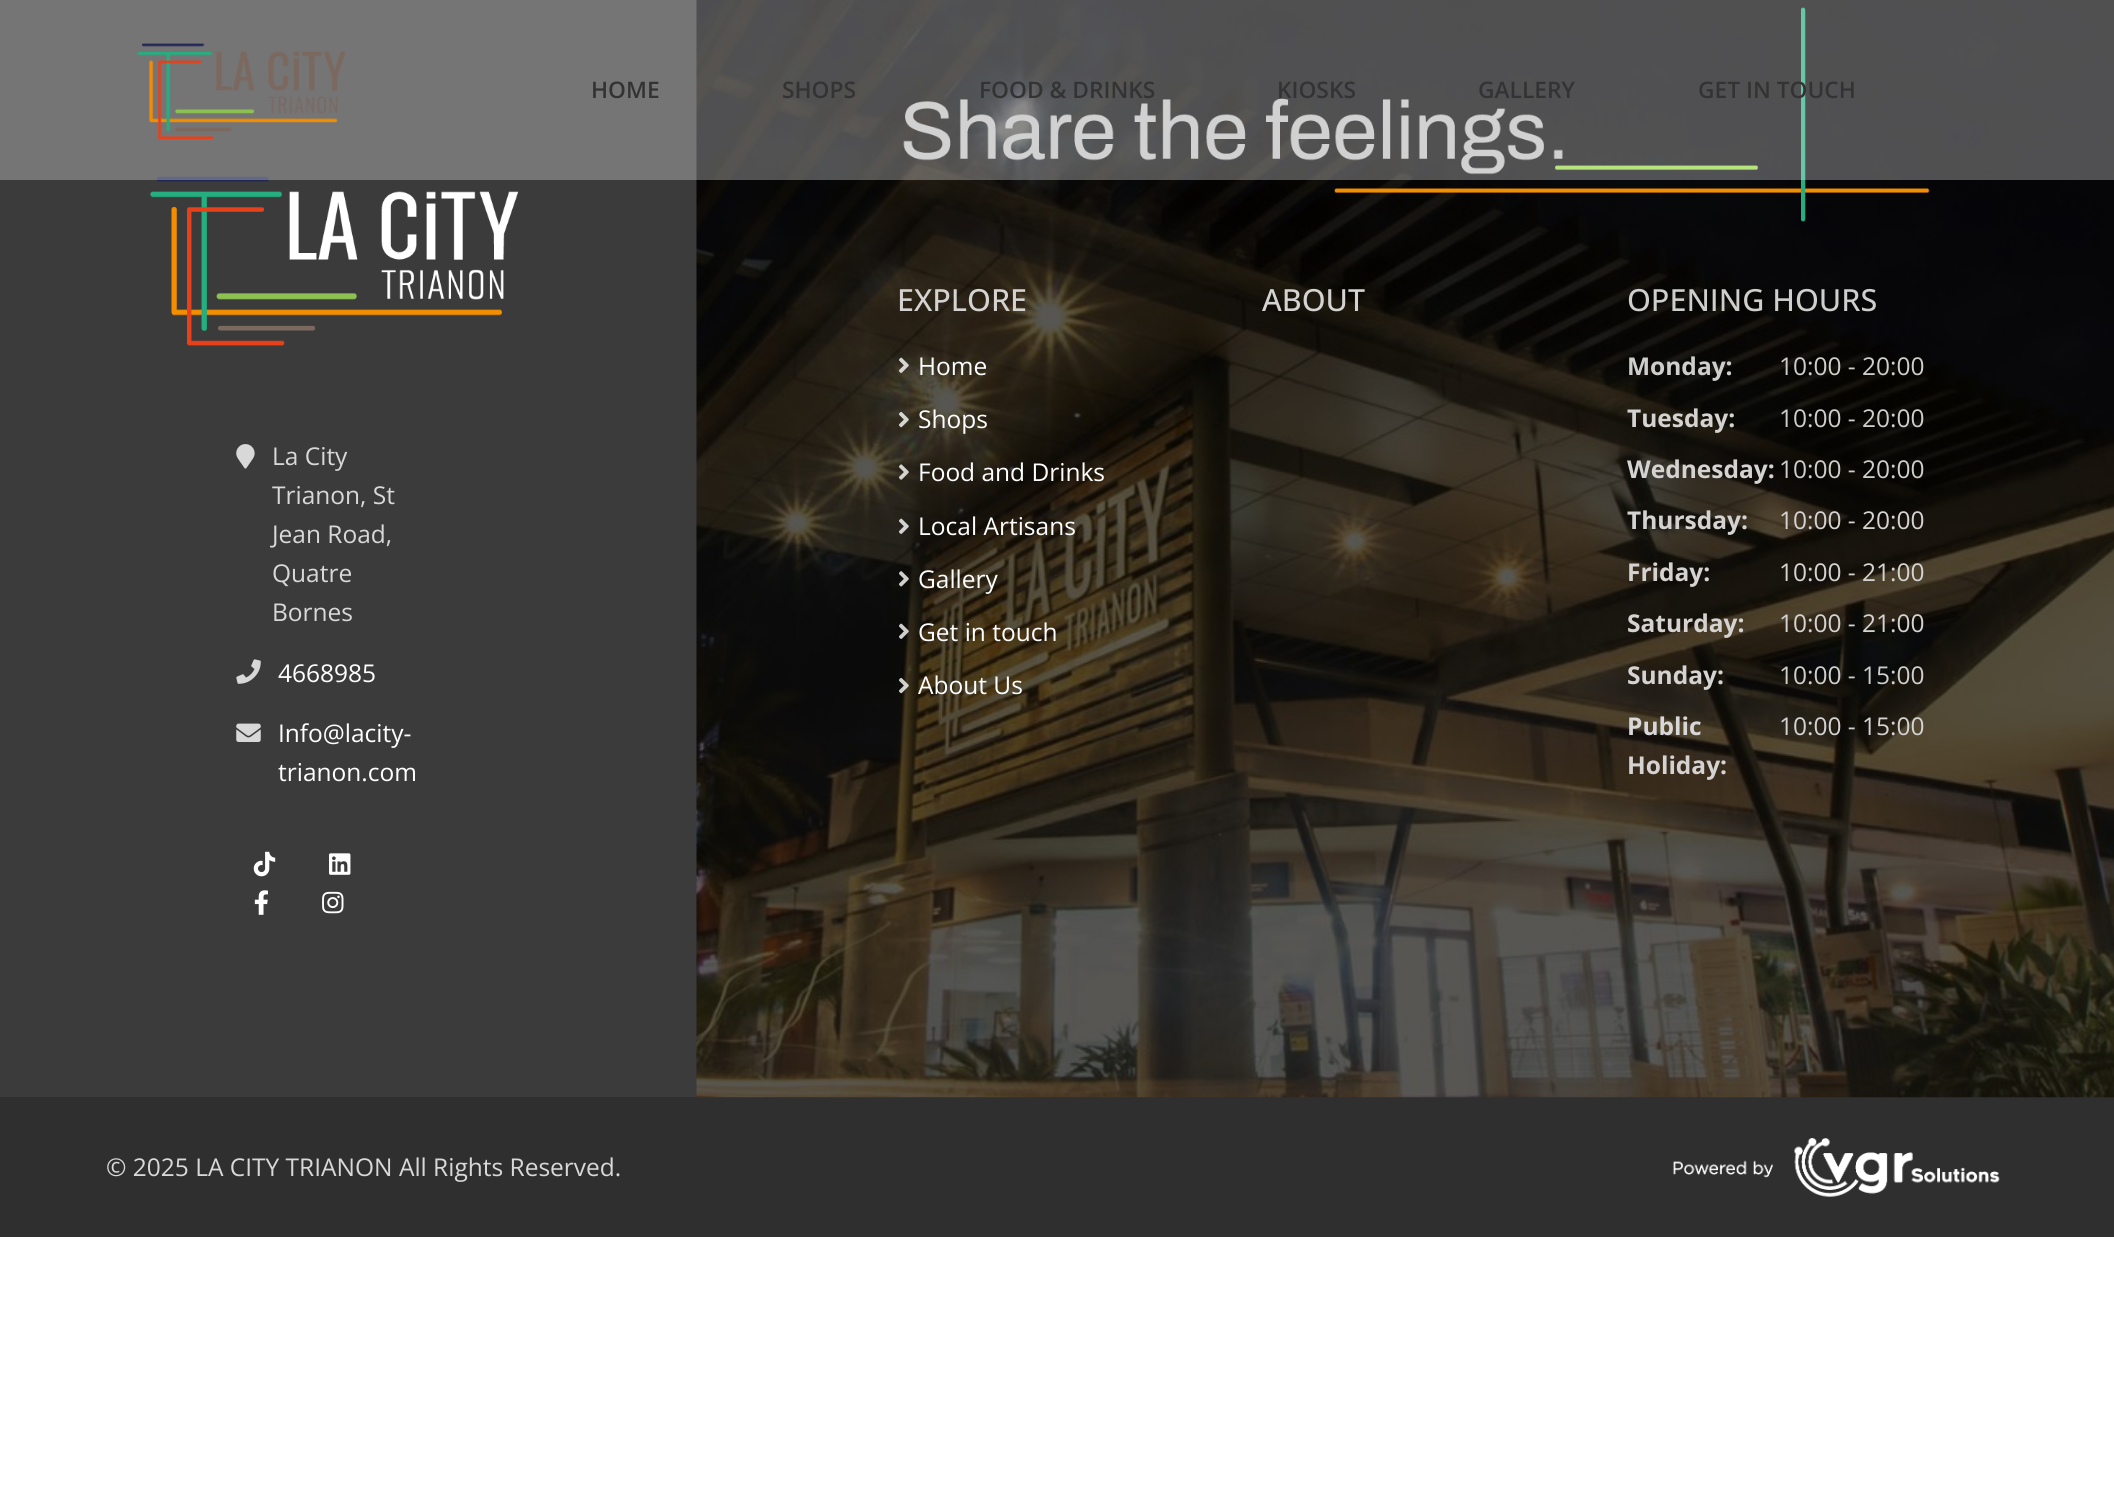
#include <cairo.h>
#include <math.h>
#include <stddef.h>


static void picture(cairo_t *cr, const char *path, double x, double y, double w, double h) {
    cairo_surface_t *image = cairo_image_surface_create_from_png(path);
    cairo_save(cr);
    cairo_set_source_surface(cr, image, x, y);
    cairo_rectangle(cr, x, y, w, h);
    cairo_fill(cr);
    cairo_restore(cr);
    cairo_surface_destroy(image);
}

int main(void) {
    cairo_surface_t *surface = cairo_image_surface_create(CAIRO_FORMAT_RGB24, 2114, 1486);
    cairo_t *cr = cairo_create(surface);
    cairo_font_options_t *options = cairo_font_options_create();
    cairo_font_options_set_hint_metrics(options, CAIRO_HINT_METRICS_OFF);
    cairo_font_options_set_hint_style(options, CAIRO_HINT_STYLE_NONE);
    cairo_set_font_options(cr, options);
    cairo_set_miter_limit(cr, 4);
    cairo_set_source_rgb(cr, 1, 1, 1);
    cairo_paint(cr);
    cairo_set_source_rgb(cr, 0.231, 0.231, 0.231);
    cairo_rectangle(cr, 0, 0, 697, 1097);
    cairo_fill(cr);
    picture(cr, "img2.png", 150, 176, 369, 170);
    cairo_set_source_rgb(cr, 0.184, 0.184, 0.184);
    cairo_rectangle(cr, 0, 1097, 2114, 140);
    cairo_fill(cr);
    picture(cr, "img10.png", 696, 0, 1418, 1098);
    picture(cr, "img11.png", 903, 7, 1027, 215);
    cairo_set_source_rgba(cr, 1, 1, 1, 0.3);
    cairo_rectangle(cr, 0, 0, 2114, 180);
    cairo_fill(cr);
    picture(cr, "img1.png", 137, 43, 209, 96);
    cairo_select_font_face(cr, "Open Sans SemiBold", CAIRO_FONT_SLANT_NORMAL, CAIRO_FONT_WEIGHT_NORMAL);
    cairo_set_font_size(cr, 22.75);
    cairo_set_source_rgb(cr, 0.2, 0.2, 0.2);
    cairo_move_to(cr, 591, 98);
    cairo_show_text(cr, "HOME");
    cairo_move_to(cr, 782, 98);
    cairo_show_text(cr, "SHOPS");
    cairo_move_to(cr, 979, 98);
    cairo_show_text(cr, "FOOD & DRINKS");
    cairo_move_to(cr, 1277, 98);
    cairo_show_text(cr, "KIOSKS");
    cairo_move_to(cr, 1478, 98);
    cairo_show_text(cr, "GALLERY");
    cairo_move_to(cr, 1698, 98);
    cairo_show_text(cr, "GET IN TOUCH");
    picture(cr, "img3.png", 236, 444, 19, 25);
    cairo_select_font_face(cr, "Open Sans", CAIRO_FONT_SLANT_NORMAL, CAIRO_FONT_WEIGHT_NORMAL);
    cairo_set_font_size(cr, 24.5);
    cairo_set_source_rgb(cr, 0.847, 0.847, 0.847);
    cairo_move_to(cr, 272, 465);
    cairo_show_text(cr, "La City");
    cairo_move_to(cr, 272, 504);
    cairo_show_text(cr, "Trianon, St");
    cairo_move_to(cr, 272, 543);
    cairo_show_text(cr, "Jean Road,");
    cairo_move_to(cr, 272, 582);
    cairo_show_text(cr, "Quatre");
    cairo_move_to(cr, 272, 621);
    cairo_show_text(cr, "Bornes");
    picture(cr, "img4.png", 236, 659, 25, 25);
    cairo_set_source_rgb(cr, 1, 1, 1);
    cairo_move_to(cr, 278, 682);
    cairo_show_text(cr, "4668985");
    picture(cr, "img5.png", 236, 723, 25, 19);
    cairo_move_to(cr, 278, 742);
    cairo_show_text(cr, "Info@lacity-");
    cairo_move_to(cr, 278, 781);
    cairo_show_text(cr, "trianon.com");
    picture(cr, "img6.png", 253, 851, 23, 26);
    picture(cr, "img7.png", 329, 853, 22, 22);
    picture(cr, "img8.png", 254, 890, 14, 25);
    picture(cr, "img9.png", 322, 891, 22, 23);
    cairo_select_font_face(cr, "Open Sans Medium", CAIRO_FONT_SLANT_NORMAL, CAIRO_FONT_WEIGHT_NORMAL);
    cairo_set_font_size(cr, 30.5);
    cairo_set_source_rgb(cr, 0.835, 0.827, 0.82);
    cairo_move_to(cr, 897, 311);
    cairo_show_text(cr, "EXPLORE");
    picture(cr, "img12.png", 899, 357, 10, 16);
    cairo_select_font_face(cr, "Open Sans", CAIRO_FONT_SLANT_NORMAL, CAIRO_FONT_WEIGHT_NORMAL);
    cairo_set_font_size(cr, 24.5);
    cairo_set_source_rgb(cr, 1, 1, 1);
    cairo_move_to(cr, 918, 375);
    cairo_show_text(cr, "Home");
    picture(cr, "img13.png", 899, 411, 10, 17);
    cairo_move_to(cr, 918, 428);
    cairo_show_text(cr, "Shops");
    picture(cr, "img14.png", 899, 464, 10, 16);
    cairo_move_to(cr, 918, 481);
    cairo_show_text(cr, "Food and Drinks");
    picture(cr, "img15.png", 899, 518, 10, 16);
    cairo_move_to(cr, 918, 535);
    cairo_show_text(cr, "Local Artisans");
    picture(cr, "img16.png", 899, 571, 10, 16);
    cairo_move_to(cr, 918, 588);
    cairo_show_text(cr, "Gallery");
    picture(cr, "img17.png", 899, 623, 10, 16);
    cairo_move_to(cr, 918, 641);
    cairo_show_text(cr, "Get in touch");
    picture(cr, "img18.png", 899, 677, 10, 17);
    cairo_move_to(cr, 918, 694);
    cairo_show_text(cr, "About Us");
    cairo_select_font_face(cr, "Open Sans Medium", CAIRO_FONT_SLANT_NORMAL, CAIRO_FONT_WEIGHT_NORMAL);
    cairo_set_font_size(cr, 30.5);
    cairo_set_source_rgb(cr, 0.835, 0.827, 0.82);
    cairo_move_to(cr, 1262, 311);
    cairo_show_text(cr, "ABOUT");
    cairo_set_source_rgb(cr, 0.808, 0.808, 0.804);
    cairo_move_to(cr, 1627, 311);
    cairo_show_text(cr, "OPENING HOURS");
    cairo_select_font_face(cr, "Open Sans", CAIRO_FONT_SLANT_NORMAL, CAIRO_FONT_WEIGHT_BOLD);
    cairo_set_font_size(cr, 24.5);
    cairo_move_to(cr, 1627, 375);
    cairo_show_text(cr, "Monday:");
    cairo_select_font_face(cr, "Open Sans", CAIRO_FONT_SLANT_NORMAL, CAIRO_FONT_WEIGHT_NORMAL);
    cairo_move_to(cr, 1779, 375);
    cairo_show_text(cr, "10:00 - 20:00");
    cairo_select_font_face(cr, "Open Sans", CAIRO_FONT_SLANT_NORMAL, CAIRO_FONT_WEIGHT_BOLD);
    cairo_set_source_rgb(cr, 0.835, 0.827, 0.82);
    cairo_move_to(cr, 1627, 427);
    cairo_show_text(cr, "Tuesday:");
    cairo_select_font_face(cr, "Open Sans", CAIRO_FONT_SLANT_NORMAL, CAIRO_FONT_WEIGHT_NORMAL);
    cairo_set_source_rgb(cr, 0.808, 0.808, 0.804);
    cairo_move_to(cr, 1779, 427);
    cairo_show_text(cr, "10:00 - 20:00");
    cairo_select_font_face(cr, "Open Sans", CAIRO_FONT_SLANT_NORMAL, CAIRO_FONT_WEIGHT_BOLD);
    cairo_set_source_rgb(cr, 0.835, 0.827, 0.82);
    cairo_move_to(cr, 1627, 478);
    cairo_show_text(cr, "Wednesday:");
    cairo_select_font_face(cr, "Open Sans", CAIRO_FONT_SLANT_NORMAL, CAIRO_FONT_WEIGHT_NORMAL);
    cairo_set_source_rgb(cr, 0.808, 0.808, 0.804);
    cairo_move_to(cr, 1779, 478);
    cairo_show_text(cr, "10:00 - 20:00");
    cairo_select_font_face(cr, "Open Sans", CAIRO_FONT_SLANT_NORMAL, CAIRO_FONT_WEIGHT_BOLD);
    cairo_set_source_rgb(cr, 0.835, 0.827, 0.82);
    cairo_move_to(cr, 1627, 529);
    cairo_show_text(cr, "Thursday:");
    cairo_select_font_face(cr, "Open Sans", CAIRO_FONT_SLANT_NORMAL, CAIRO_FONT_WEIGHT_NORMAL);
    cairo_move_to(cr, 1779, 529);
    cairo_show_text(cr, "10:00 - 20:00");
    cairo_select_font_face(cr, "Open Sans", CAIRO_FONT_SLANT_NORMAL, CAIRO_FONT_WEIGHT_BOLD);
    cairo_move_to(cr, 1627, 581);
    cairo_show_text(cr, "Friday:");
    cairo_select_font_face(cr, "Open Sans", CAIRO_FONT_SLANT_NORMAL, CAIRO_FONT_WEIGHT_NORMAL);
    cairo_move_to(cr, 1779, 581);
    cairo_show_text(cr, "10:00 - 21:00");
    cairo_select_font_face(cr, "Open Sans", CAIRO_FONT_SLANT_NORMAL, CAIRO_FONT_WEIGHT_BOLD);
    cairo_move_to(cr, 1627, 632);
    cairo_show_text(cr, "Saturday:");
    cairo_select_font_face(cr, "Open Sans", CAIRO_FONT_SLANT_NORMAL, CAIRO_FONT_WEIGHT_NORMAL);
    cairo_move_to(cr, 1779, 632);
    cairo_show_text(cr, "10:00 - 21:00");
    cairo_select_font_face(cr, "Open Sans", CAIRO_FONT_SLANT_NORMAL, CAIRO_FONT_WEIGHT_BOLD);
    cairo_move_to(cr, 1627, 684);
    cairo_show_text(cr, "Sunday:");
    cairo_select_font_face(cr, "Open Sans", CAIRO_FONT_SLANT_NORMAL, CAIRO_FONT_WEIGHT_NORMAL);
    cairo_set_source_rgb(cr, 0.808, 0.808, 0.804);
    cairo_move_to(cr, 1779, 684);
    cairo_show_text(cr, "10:00 - 15:00");
    cairo_select_font_face(cr, "Open Sans", CAIRO_FONT_SLANT_NORMAL, CAIRO_FONT_WEIGHT_BOLD);
    cairo_set_source_rgb(cr, 0.847, 0.847, 0.847);
    cairo_move_to(cr, 1627, 735);
    cairo_show_text(cr, "Public");
    cairo_set_source_rgb(cr, 0.835, 0.827, 0.82);
    cairo_move_to(cr, 1627, 774);
    cairo_show_text(cr, "Holiday:");
    cairo_select_font_face(cr, "Open Sans", CAIRO_FONT_SLANT_NORMAL, CAIRO_FONT_WEIGHT_NORMAL);
    cairo_move_to(cr, 1779, 735);
    cairo_show_text(cr, "10:00 - 15:00");
    cairo_set_source_rgb(cr, 0.847, 0.847, 0.847);
    cairo_move_to(cr, 106, 1176);
    cairo_show_text(cr, "© 2025 LA CITY TRIANON All Rights Reserved.");
    picture(cr, "img19.png", 1673, 1138, 327, 59);
    cairo_surface_write_to_png(surface, "page.png");
    cairo_font_options_destroy(options);
    cairo_destroy(cr);
    cairo_surface_destroy(surface);
    return 0;
}
